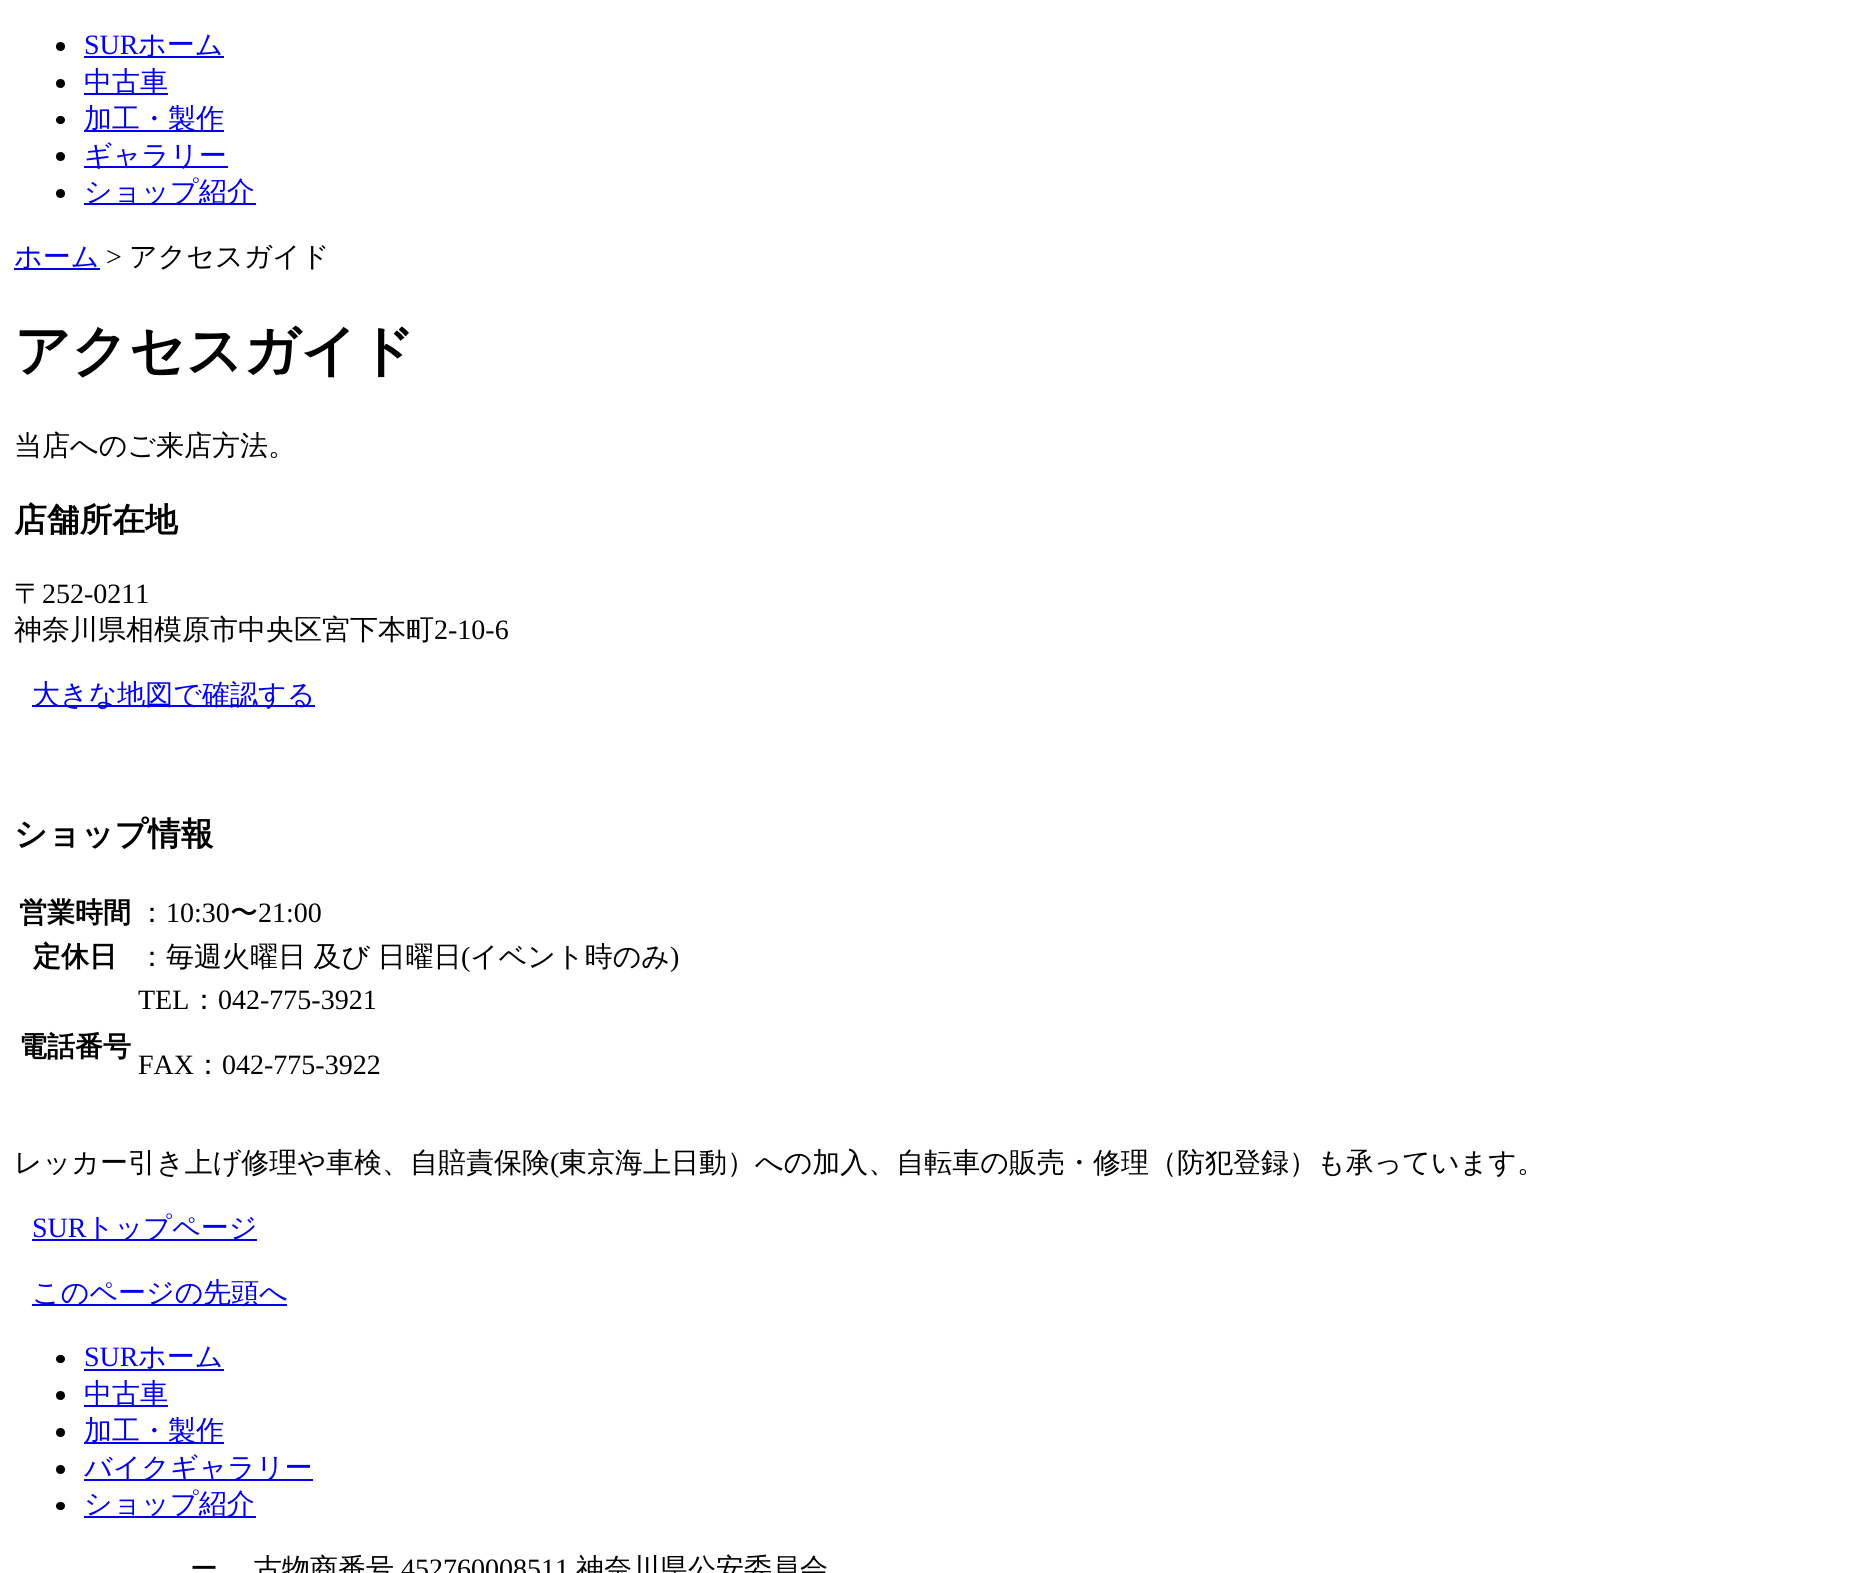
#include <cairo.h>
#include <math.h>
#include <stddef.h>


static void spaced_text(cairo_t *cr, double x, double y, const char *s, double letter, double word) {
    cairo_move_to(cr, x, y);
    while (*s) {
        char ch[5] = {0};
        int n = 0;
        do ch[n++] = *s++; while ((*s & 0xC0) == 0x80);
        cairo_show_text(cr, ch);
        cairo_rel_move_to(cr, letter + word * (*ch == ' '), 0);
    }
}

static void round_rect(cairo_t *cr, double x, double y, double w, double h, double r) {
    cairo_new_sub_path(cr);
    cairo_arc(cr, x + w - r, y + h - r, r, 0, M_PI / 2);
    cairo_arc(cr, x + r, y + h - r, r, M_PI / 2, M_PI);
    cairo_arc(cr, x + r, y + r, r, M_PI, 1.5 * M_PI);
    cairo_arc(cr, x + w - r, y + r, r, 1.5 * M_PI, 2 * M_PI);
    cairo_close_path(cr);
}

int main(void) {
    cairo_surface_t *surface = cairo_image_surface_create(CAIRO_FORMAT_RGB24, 1876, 1573);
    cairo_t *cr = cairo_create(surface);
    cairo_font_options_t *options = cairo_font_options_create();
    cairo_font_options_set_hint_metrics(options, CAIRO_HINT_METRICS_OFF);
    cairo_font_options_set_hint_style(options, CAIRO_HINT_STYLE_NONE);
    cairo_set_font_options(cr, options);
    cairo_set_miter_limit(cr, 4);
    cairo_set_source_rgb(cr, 1, 1, 1);
    cairo_paint(cr);
    cairo_set_source_rgb(cr, 0, 0, 0);
    cairo_arc(cr, 60.5, 46.5, 4.5, 0, 2 * M_PI);
    cairo_fill(cr);
    cairo_select_font_face(cr, "Liberation Serif", CAIRO_FONT_SLANT_NORMAL, CAIRO_FONT_WEIGHT_NORMAL);
    cairo_set_font_size(cr, 28);
    cairo_set_source_rgb(cr, 0, 0, 0.933);
    cairo_move_to(cr, 84, 54);
    cairo_show_text(cr, "SUR");
    cairo_rectangle(cr, 84, 56, 140, 2);
    cairo_fill(cr);
    cairo_select_font_face(cr, "WenQuanYi Zen Hei Medium", CAIRO_FONT_SLANT_NORMAL, CAIRO_FONT_WEIGHT_NORMAL);
    cairo_move_to(cr, 138, 54);
    cairo_show_text(cr, "ホーム");
    cairo_set_source_rgb(cr, 0, 0, 0);
    cairo_new_path(cr);
    cairo_arc(cr, 60.5, 83.5, 4.5, 0, 2 * M_PI);
    cairo_fill(cr);
    cairo_set_source_rgb(cr, 0, 0, 0.933);
    cairo_rectangle(cr, 84, 93, 84, 2);
    cairo_fill(cr);
    cairo_move_to(cr, 84, 91);
    cairo_show_text(cr, "中古車");
    cairo_set_source_rgb(cr, 0, 0, 0);
    round_rect(cr, 56, 116, 9, 8, 4);
    cairo_fill(cr);
    cairo_set_source_rgb(cr, 0, 0, 0.933);
    cairo_rectangle(cr, 84, 130, 140, 2);
    cairo_fill(cr);
    cairo_move_to(cr, 84, 128);
    cairo_show_text(cr, "加工・製作");
    cairo_set_source_rgb(cr, 0, 0, 0);
    cairo_new_path(cr);
    cairo_arc(cr, 60.5, 156.5, 4.5, 0, 2 * M_PI);
    cairo_fill(cr);
    cairo_set_source_rgb(cr, 0, 0, 0.933);
    cairo_rectangle(cr, 84, 166, 144, 2);
    cairo_fill(cr);
    cairo_move_to(cr, 84, 165);
    cairo_show_text(cr, "ギャラリー");
    cairo_set_source_rgb(cr, 0, 0, 0);
    cairo_new_path(cr);
    cairo_arc(cr, 60.5, 193.5, 4.5, 0, 2 * M_PI);
    cairo_fill(cr);
    cairo_set_source_rgb(cr, 0, 0, 0.933);
    cairo_rectangle(cr, 84, 203, 172, 2);
    cairo_fill(cr);
    cairo_move_to(cr, 84, 201);
    cairo_show_text(cr, "ショップ紹介");
    cairo_rectangle(cr, 14, 268, 86, 2);
    cairo_fill(cr);
    cairo_move_to(cr, 14, 266);
    cairo_show_text(cr, "ホーム");
    cairo_select_font_face(cr, "Liberation Serif", CAIRO_FONT_SLANT_NORMAL, CAIRO_FONT_WEIGHT_NORMAL);
    cairo_set_source_rgb(cr, 0, 0, 0);
    cairo_move_to(cr, 106, 266);
    cairo_show_text(cr, ">");
    cairo_select_font_face(cr, "WenQuanYi Zen Hei Medium", CAIRO_FONT_SLANT_NORMAL, CAIRO_FONT_WEIGHT_NORMAL);
    cairo_move_to(cr, 129, 266);
    cairo_show_text(cr, "アクセスガイド");
    cairo_select_font_face(cr, "WenQuanYi Zen Hei", CAIRO_FONT_SLANT_NORMAL, CAIRO_FONT_WEIGHT_BOLD);
    cairo_set_font_size(cr, 56);
    cairo_move_to(cr, 14, 370);
    cairo_show_text(cr, "アクセスガイド");
    cairo_select_font_face(cr, "WenQuanYi Zen Hei Medium", CAIRO_FONT_SLANT_NORMAL, CAIRO_FONT_WEIGHT_NORMAL);
    cairo_set_font_size(cr, 28);
    cairo_move_to(cr, 14, 455);
    cairo_show_text(cr, "当店へのご来店方法。");
    cairo_select_font_face(cr, "WenQuanYi Zen Hei", CAIRO_FONT_SLANT_NORMAL, CAIRO_FONT_WEIGHT_BOLD);
    cairo_set_font_size(cr, 32.75);
    cairo_move_to(cr, 14, 531);
    cairo_show_text(cr, "店舗所在地");
    cairo_select_font_face(cr, "WenQuanYi Zen Hei Medium", CAIRO_FONT_SLANT_NORMAL, CAIRO_FONT_WEIGHT_NORMAL);
    cairo_set_font_size(cr, 28);
    cairo_move_to(cr, 14, 603);
    cairo_show_text(cr, "〒");
    cairo_select_font_face(cr, "Liberation Serif", CAIRO_FONT_SLANT_NORMAL, CAIRO_FONT_WEIGHT_NORMAL);
    cairo_move_to(cr, 42, 603);
    cairo_show_text(cr, "252-0211");
    cairo_select_font_face(cr, "WenQuanYi Zen Hei Medium", CAIRO_FONT_SLANT_NORMAL, CAIRO_FONT_WEIGHT_NORMAL);
    cairo_move_to(cr, 14, 639);
    cairo_show_text(cr, "神奈川県相模原市中央区宮下本町");
    cairo_select_font_face(cr, "Liberation Serif", CAIRO_FONT_SLANT_NORMAL, CAIRO_FONT_WEIGHT_NORMAL);
    cairo_move_to(cr, 434, 639);
    cairo_show_text(cr, "2-10-6");
    cairo_set_source_rgb(cr, 0, 0, 0.933);
    cairo_rectangle(cr, 32, 705, 283, 2);
    cairo_fill(cr);
    cairo_select_font_face(cr, "WenQuanYi Zen Hei Medium", CAIRO_FONT_SLANT_NORMAL, CAIRO_FONT_WEIGHT_NORMAL);
    cairo_move_to(cr, 32, 704);
    cairo_show_text(cr, "大きな地図で確認する");
    cairo_select_font_face(cr, "WenQuanYi Zen Hei", CAIRO_FONT_SLANT_NORMAL, CAIRO_FONT_WEIGHT_BOLD);
    cairo_set_font_size(cr, 32.75);
    cairo_set_source_rgb(cr, 0, 0, 0);
    cairo_move_to(cr, 14, 845);
    cairo_show_text(cr, "ショップ情報");
    cairo_set_font_size(cr, 28);
    cairo_move_to(cr, 19, 922);
    cairo_show_text(cr, "営業時間");
    cairo_select_font_face(cr, "WenQuanYi Zen Hei Medium", CAIRO_FONT_SLANT_NORMAL, CAIRO_FONT_WEIGHT_NORMAL);
    cairo_move_to(cr, 138, 922);
    cairo_show_text(cr, "：");
    cairo_select_font_face(cr, "Liberation Serif", CAIRO_FONT_SLANT_NORMAL, CAIRO_FONT_WEIGHT_NORMAL);
    cairo_move_to(cr, 166, 922);
    cairo_show_text(cr, "10:30");
    cairo_select_font_face(cr, "WenQuanYi Zen Hei Medium", CAIRO_FONT_SLANT_NORMAL, CAIRO_FONT_WEIGHT_NORMAL);
    cairo_move_to(cr, 230, 922);
    cairo_show_text(cr, "〜");
    cairo_select_font_face(cr, "Liberation Serif", CAIRO_FONT_SLANT_NORMAL, CAIRO_FONT_WEIGHT_NORMAL);
    cairo_move_to(cr, 258, 922);
    cairo_show_text(cr, "21:00");
    cairo_select_font_face(cr, "WenQuanYi Zen Hei", CAIRO_FONT_SLANT_NORMAL, CAIRO_FONT_WEIGHT_BOLD);
    cairo_move_to(cr, 33, 966);
    cairo_show_text(cr, "定休日");
    cairo_select_font_face(cr, "WenQuanYi Zen Hei Medium", CAIRO_FONT_SLANT_NORMAL, CAIRO_FONT_WEIGHT_NORMAL);
    spaced_text(cr, 138, 966, "：毎週火曜日 及び 日曜日", 0, -1);
    cairo_select_font_face(cr, "Liberation Serif", CAIRO_FONT_SLANT_NORMAL, CAIRO_FONT_WEIGHT_NORMAL);
    cairo_move_to(cr, 461, 966);
    cairo_show_text(cr, "(");
    cairo_select_font_face(cr, "WenQuanYi Zen Hei Medium", CAIRO_FONT_SLANT_NORMAL, CAIRO_FONT_WEIGHT_NORMAL);
    cairo_move_to(cr, 470, 966);
    cairo_show_text(cr, "イベント時のみ");
    cairo_select_font_face(cr, "Liberation Serif", CAIRO_FONT_SLANT_NORMAL, CAIRO_FONT_WEIGHT_NORMAL);
    cairo_move_to(cr, 670, 966);
    cairo_show_text(cr, ")");
    cairo_select_font_face(cr, "WenQuanYi Zen Hei", CAIRO_FONT_SLANT_NORMAL, CAIRO_FONT_WEIGHT_BOLD);
    cairo_move_to(cr, 19, 1056);
    cairo_show_text(cr, "電話番号");
    cairo_select_font_face(cr, "Liberation Serif", CAIRO_FONT_SLANT_NORMAL, CAIRO_FONT_WEIGHT_NORMAL);
    cairo_move_to(cr, 138, 1009);
    cairo_show_text(cr, "TEL");
    cairo_select_font_face(cr, "WenQuanYi Zen Hei Medium", CAIRO_FONT_SLANT_NORMAL, CAIRO_FONT_WEIGHT_NORMAL);
    cairo_move_to(cr, 190, 1009);
    cairo_show_text(cr, "：");
    cairo_select_font_face(cr, "Liberation Serif", CAIRO_FONT_SLANT_NORMAL, CAIRO_FONT_WEIGHT_NORMAL);
    cairo_move_to(cr, 218, 1009);
    cairo_show_text(cr, "042-775-3921");
    cairo_move_to(cr, 138, 1074);
    cairo_show_text(cr, "FAX");
    cairo_select_font_face(cr, "WenQuanYi Zen Hei Medium", CAIRO_FONT_SLANT_NORMAL, CAIRO_FONT_WEIGHT_NORMAL);
    cairo_move_to(cr, 194, 1074);
    cairo_show_text(cr, "：");
    cairo_select_font_face(cr, "Liberation Serif", CAIRO_FONT_SLANT_NORMAL, CAIRO_FONT_WEIGHT_NORMAL);
    cairo_move_to(cr, 222, 1074);
    cairo_show_text(cr, "042-775-3922");
    cairo_select_font_face(cr, "WenQuanYi Zen Hei Medium", CAIRO_FONT_SLANT_NORMAL, CAIRO_FONT_WEIGHT_NORMAL);
    cairo_move_to(cr, 14, 1172);
    cairo_show_text(cr, "レッカー引き上げ修理や車検、自賠責保険");
    cairo_select_font_face(cr, "Liberation Serif", CAIRO_FONT_SLANT_NORMAL, CAIRO_FONT_WEIGHT_NORMAL);
    cairo_move_to(cr, 550, 1172);
    cairo_show_text(cr, "(");
    cairo_select_font_face(cr, "WenQuanYi Zen Hei Medium", CAIRO_FONT_SLANT_NORMAL, CAIRO_FONT_WEIGHT_NORMAL);
    cairo_move_to(cr, 559, 1172);
    cairo_show_text(cr, "東京海上日動）への加入、自転車の販売・修理（防犯登録）も承っています。");
    cairo_select_font_face(cr, "Liberation Serif", CAIRO_FONT_SLANT_NORMAL, CAIRO_FONT_WEIGHT_NORMAL);
    cairo_set_source_rgb(cr, 0, 0, 0.933);
    cairo_move_to(cr, 32, 1237);
    cairo_show_text(cr, "SUR");
    cairo_rectangle(cr, 32, 1239, 225, 2);
    cairo_fill(cr);
    cairo_select_font_face(cr, "WenQuanYi Zen Hei Medium", CAIRO_FONT_SLANT_NORMAL, CAIRO_FONT_WEIGHT_NORMAL);
    cairo_move_to(cr, 86, 1237);
    cairo_show_text(cr, "トップページ");
    cairo_rectangle(cr, 32, 1304, 255, 2);
    cairo_fill(cr);
    cairo_move_to(cr, 32, 1302);
    cairo_show_text(cr, "このページの先頭へ");
    cairo_set_source_rgb(cr, 0, 0, 0);
    round_rect(cr, 56, 1355, 9, 8, 4);
    cairo_fill(cr);
    cairo_select_font_face(cr, "Liberation Serif", CAIRO_FONT_SLANT_NORMAL, CAIRO_FONT_WEIGHT_NORMAL);
    cairo_set_source_rgb(cr, 0, 0, 0.933);
    cairo_move_to(cr, 84, 1366);
    cairo_show_text(cr, "SUR");
    cairo_select_font_face(cr, "WenQuanYi Zen Hei Medium", CAIRO_FONT_SLANT_NORMAL, CAIRO_FONT_WEIGHT_NORMAL);
    cairo_move_to(cr, 138, 1366);
    cairo_show_text(cr, "ホーム");
    cairo_rectangle(cr, 84, 1369, 140, 2);
    cairo_fill(cr);
    cairo_set_source_rgb(cr, 0, 0, 0);
    cairo_arc(cr, 60.5, 1395.5, 4.5, 0, 2 * M_PI);
    cairo_fill(cr);
    cairo_set_source_rgb(cr, 0, 0, 0.933);
    cairo_rectangle(cr, 84, 1405, 84, 2);
    cairo_fill(cr);
    cairo_move_to(cr, 84, 1403);
    cairo_show_text(cr, "中古車");
    cairo_set_source_rgb(cr, 0, 0, 0);
    cairo_new_path(cr);
    cairo_arc(cr, 60.5, 1432.5, 4.5, 0, 2 * M_PI);
    cairo_fill(cr);
    cairo_set_source_rgb(cr, 0, 0, 0.933);
    cairo_rectangle(cr, 84, 1442, 140, 2);
    cairo_fill(cr);
    cairo_move_to(cr, 84, 1440);
    cairo_show_text(cr, "加工・製作");
    cairo_set_source_rgb(cr, 0, 0, 0);
    cairo_new_path(cr);
    cairo_arc(cr, 60.5, 1469.5, 4.5, 0, 2 * M_PI);
    cairo_fill(cr);
    cairo_set_source_rgb(cr, 0, 0, 0.933);
    cairo_rectangle(cr, 84, 1479, 229, 2);
    cairo_fill(cr);
    cairo_move_to(cr, 84, 1477);
    cairo_show_text(cr, "バイクギャラリー");
    cairo_set_source_rgb(cr, 0, 0, 0);
    round_rect(cr, 56, 1502, 9, 8, 4);
    cairo_fill(cr);
    cairo_set_source_rgb(cr, 0, 0, 0.933);
    cairo_rectangle(cr, 84, 1516, 172, 2);
    cairo_fill(cr);
    cairo_move_to(cr, 84, 1513);
    cairo_show_text(cr, "ショップ紹介");
    cairo_set_source_rgb(cr, 0, 0, 0);
    spaced_text(cr, 190, 1578, "ー", 0, -1);
    cairo_move_to(cr, 254, 1578);
    cairo_show_text(cr, "古物商番号");
    cairo_select_font_face(cr, "Liberation Serif", CAIRO_FONT_SLANT_NORMAL, CAIRO_FONT_WEIGHT_NORMAL);
    cairo_move_to(cr, 401, 1578);
    cairo_show_text(cr, "452760008511");
    cairo_select_font_face(cr, "WenQuanYi Zen Hei Medium", CAIRO_FONT_SLANT_NORMAL, CAIRO_FONT_WEIGHT_NORMAL);
    cairo_move_to(cr, 576, 1578);
    cairo_show_text(cr, "神奈川県公安委員会");
    cairo_surface_write_to_png(surface, "page.png");
    cairo_font_options_destroy(options);
    cairo_destroy(cr);
    cairo_surface_destroy(surface);
    return 0;
}
